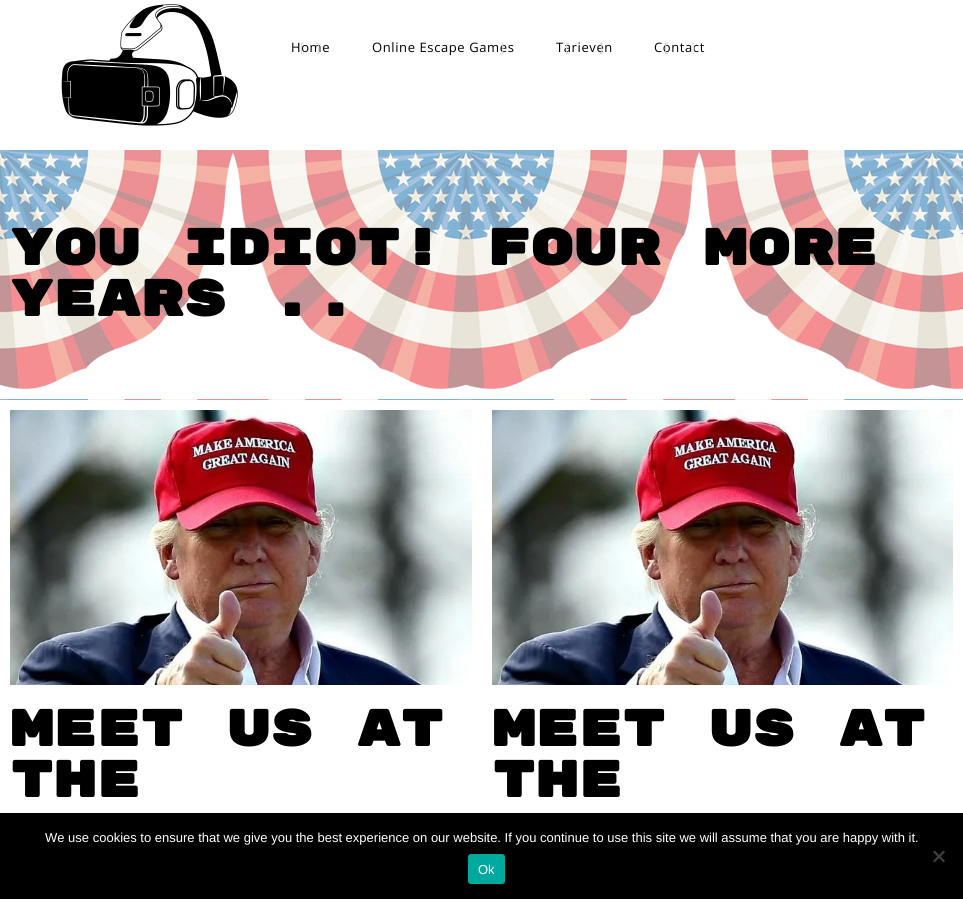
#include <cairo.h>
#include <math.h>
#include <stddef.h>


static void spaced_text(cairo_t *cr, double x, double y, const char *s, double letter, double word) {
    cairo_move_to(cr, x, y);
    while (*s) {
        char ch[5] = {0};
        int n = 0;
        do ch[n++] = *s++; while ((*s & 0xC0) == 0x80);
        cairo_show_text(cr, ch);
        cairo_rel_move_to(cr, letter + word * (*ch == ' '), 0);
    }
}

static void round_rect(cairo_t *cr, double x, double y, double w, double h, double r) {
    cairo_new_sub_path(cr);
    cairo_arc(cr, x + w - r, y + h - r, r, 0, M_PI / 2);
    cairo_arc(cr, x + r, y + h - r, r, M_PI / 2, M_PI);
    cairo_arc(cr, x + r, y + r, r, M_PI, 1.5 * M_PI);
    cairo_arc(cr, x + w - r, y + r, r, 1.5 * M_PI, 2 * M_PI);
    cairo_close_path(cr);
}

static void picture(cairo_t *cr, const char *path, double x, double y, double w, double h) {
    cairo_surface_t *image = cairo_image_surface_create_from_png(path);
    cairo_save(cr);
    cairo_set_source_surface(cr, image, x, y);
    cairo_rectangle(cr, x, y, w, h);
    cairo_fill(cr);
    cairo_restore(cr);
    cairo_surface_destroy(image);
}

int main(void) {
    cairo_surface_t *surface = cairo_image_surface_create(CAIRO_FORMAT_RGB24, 963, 899);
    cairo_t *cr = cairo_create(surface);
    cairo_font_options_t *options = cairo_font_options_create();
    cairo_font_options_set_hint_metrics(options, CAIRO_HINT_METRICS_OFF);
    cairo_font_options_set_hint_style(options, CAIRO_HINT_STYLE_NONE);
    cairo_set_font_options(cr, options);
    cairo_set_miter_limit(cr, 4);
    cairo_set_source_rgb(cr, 1, 1, 1);
    cairo_paint(cr);
    picture(cr, "img1.png", 61, 4, 178, 122);
    cairo_select_font_face(cr, "Open Sans", CAIRO_FONT_SLANT_NORMAL, CAIRO_FONT_WEIGHT_NORMAL);
    cairo_set_font_size(cr, 13);
    cairo_set_source_rgb(cr, 0, 0, 0);
    spaced_text(cr, 291, 52, "Home", 0.6, 0);
    cairo_set_source_rgb(cr, 0.835, 0.835, 0.835);
    spaced_text(cr, 300, 52, "[", 0.6, 0);
    spaced_text(cr, 316, 52, "]", 0.6, 0);
    cairo_set_source_rgb(cr, 0, 0, 0);
    spaced_text(cr, 372, 52, "Online Escape Games", 0.6, 0);
    cairo_set_source_rgb(cr, 0.835, 0.835, 0.835);
    spaced_text(cr, 500, 52, "]", 0.6, 0);
    cairo_set_source_rgb(cr, 0, 0, 0);
    spaced_text(cr, 556, 52, "Tarieven", 0.6, 0);
    cairo_set_source_rgb(cr, 0.835, 0.835, 0.835);
    spaced_text(cr, 565, 52, "[", 0.6, 0);
    cairo_set_source_rgb(cr, 0.796, 0.796, 0.796);
    spaced_text(cr, 599, 52, "]", 0.6, 0);
    cairo_set_source_rgb(cr, 0, 0, 0);
    spaced_text(cr, 654, 52, "Contact", 0.6, 0);
    cairo_set_source_rgb(cr, 0.796, 0.796, 0.796);
    spaced_text(cr, 664, 52, "[", 0.6, 0);
    cairo_set_source_rgb(cr, 0.878, 0.878, 0.878);
    spaced_text(cr, 691, 52, "]", 0.6, 0);
    picture(cr, "img2.png", 0, 150, 963, 250);
    cairo_select_font_face(cr, "Rubik Mono One", CAIRO_FONT_SLANT_NORMAL, CAIRO_FONT_WEIGHT_BOLD);
    cairo_set_font_size(cr, 51);
    cairo_set_source_rgb(cr, 0, 0, 0);
    cairo_move_to(cr, 10, 265);
    cairo_show_text(cr, "You idiot! Four more");
    cairo_move_to(cr, 10, 316);
    cairo_show_text(cr, "years ..");
    picture(cr, "img3.png", 10, 410, 462, 275);
    cairo_move_to(cr, 10, 746);
    cairo_show_text(cr, "Meet us at");
    cairo_move_to(cr, 10, 797);
    cairo_show_text(cr, "the");
    picture(cr, "img4.png", 492, 410, 461, 275);
    cairo_move_to(cr, 492, 746);
    cairo_show_text(cr, "Meet us at");
    cairo_move_to(cr, 492, 797);
    cairo_show_text(cr, "the");
    cairo_rectangle(cr, 0, 813, 963, 86);
    cairo_fill(cr);
    cairo_select_font_face(cr, "Liberation Sans", CAIRO_FONT_SLANT_NORMAL, CAIRO_FONT_WEIGHT_NORMAL);
    cairo_set_font_size(cr, 13);
    cairo_set_source_rgb(cr, 1, 1, 1);
    cairo_move_to(cr, 45, 842);
    cairo_show_text(cr, "We use cookies to ensure that we give you the best experience on our website. If you continue to use this site we will assume that you are happy with it.");
    cairo_set_source_rgb(cr, 0.251, 0.251, 0.251);
    cairo_new_path(cr);
    cairo_move_to(cr, 943.5, 850.5);
    cairo_line_to(cr, 945, 852);
    cairo_line_to(cr, 934.5, 862.5);
    cairo_line_to(cr, 933, 861);
    cairo_close_path(cr);
    cairo_fill(cr);
    cairo_new_path(cr);
    cairo_move_to(cr, 933, 852);
    cairo_line_to(cr, 934.5, 850.5);
    cairo_line_to(cr, 945, 861);
    cairo_line_to(cr, 943.5, 862.5);
    cairo_close_path(cr);
    cairo_fill(cr);
    cairo_set_source_rgb(cr, 0, 0.663, 0.616);
    round_rect(cr, 468, 854, 37, 30, 3);
    cairo_fill(cr);
    cairo_set_source_rgb(cr, 1, 1, 1);
    cairo_move_to(cr, 478, 874);
    cairo_show_text(cr, "Ok");
    cairo_surface_write_to_png(surface, "page.png");
    cairo_font_options_destroy(options);
    cairo_destroy(cr);
    cairo_surface_destroy(surface);
    return 0;
}
